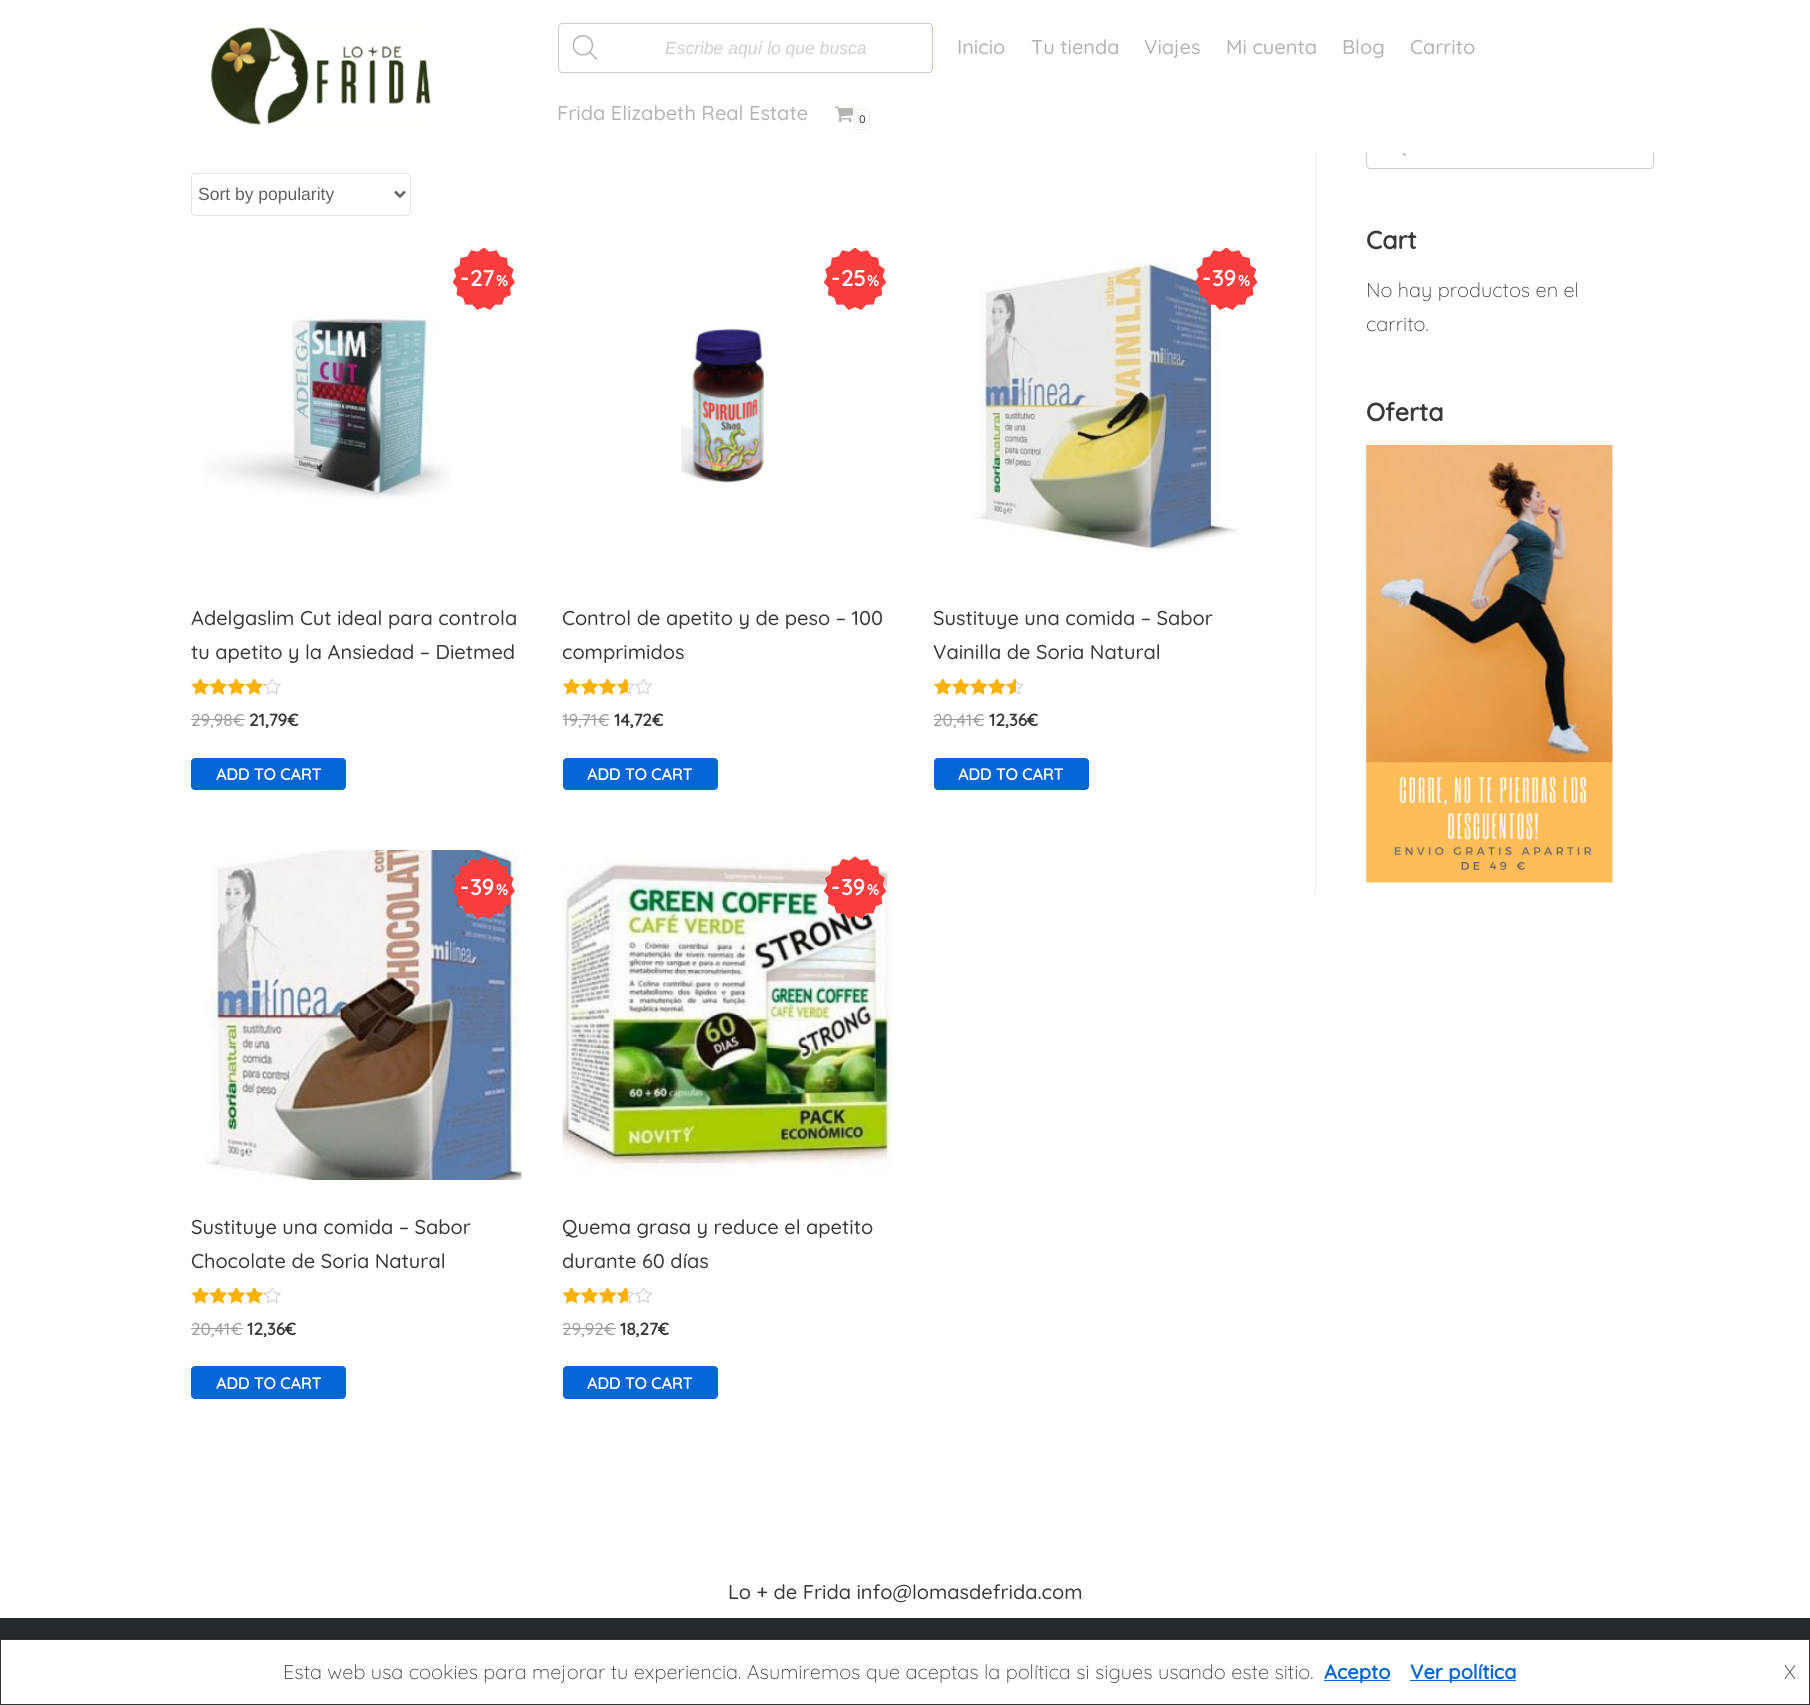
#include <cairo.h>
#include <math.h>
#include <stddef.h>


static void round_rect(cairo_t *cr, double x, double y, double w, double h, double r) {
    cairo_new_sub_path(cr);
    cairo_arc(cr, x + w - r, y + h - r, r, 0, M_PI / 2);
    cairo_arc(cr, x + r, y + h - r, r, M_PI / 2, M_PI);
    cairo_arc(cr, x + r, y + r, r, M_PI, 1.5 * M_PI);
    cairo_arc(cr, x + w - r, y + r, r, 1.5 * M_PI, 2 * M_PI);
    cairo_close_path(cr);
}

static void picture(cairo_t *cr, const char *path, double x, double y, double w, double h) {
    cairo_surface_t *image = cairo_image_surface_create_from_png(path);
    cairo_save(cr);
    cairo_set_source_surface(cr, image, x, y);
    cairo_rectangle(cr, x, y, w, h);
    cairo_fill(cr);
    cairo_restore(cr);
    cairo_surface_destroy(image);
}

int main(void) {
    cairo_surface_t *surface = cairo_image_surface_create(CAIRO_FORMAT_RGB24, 1810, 1705);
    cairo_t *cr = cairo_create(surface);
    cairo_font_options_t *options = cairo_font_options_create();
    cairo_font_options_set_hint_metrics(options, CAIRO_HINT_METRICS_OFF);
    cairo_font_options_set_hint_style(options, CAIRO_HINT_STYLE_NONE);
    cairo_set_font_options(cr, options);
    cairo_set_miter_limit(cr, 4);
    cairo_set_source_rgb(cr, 1, 1, 1);
    cairo_paint(cr);
    round_rect(cr, 1366.5, 119.5, 287, 49, 3.5);
    cairo_set_source_rgb(cr, 0.8, 0.8, 0.8);
    cairo_set_line_width(cr, 1);
    cairo_stroke(cr);
    cairo_set_source_rgb(cr, 1, 1, 0.988);
    cairo_rectangle(cr, 0, 0, 1810, 153);
    cairo_fill(cr);
    picture(cr, "img1.png", 211, 27, 220, 98);
    cairo_set_source_rgb(cr, 1, 1, 1);
    round_rect(cr, 558.5, 23.5, 374, 49, 3.5);
    cairo_fill_preserve(cr);
    cairo_set_source_rgb(cr, 0.804, 0.804, 0.804);
    cairo_stroke(cr);
    picture(cr, "img2.png", 573, 35, 25, 25);
    cairo_select_font_face(cr, "Liberation Sans", CAIRO_FONT_SLANT_ITALIC, CAIRO_FONT_WEIGHT_NORMAL);
    cairo_set_font_size(cr, 17.5);
    cairo_set_source_rgb(cr, 0.824, 0.808, 0.804);
    cairo_move_to(cr, 665, 54);
    cairo_show_text(cr, "Escribe aquí lo que busca");
    cairo_select_font_face(cr, "Quicksand Medium", CAIRO_FONT_SLANT_NORMAL, CAIRO_FONT_WEIGHT_NORMAL);
    cairo_set_font_size(cr, 20);
    cairo_set_source_rgb(cr, 0.702, 0.702, 0.702);
    cairo_move_to(cr, 957, 54);
    cairo_show_text(cr, "Inicio");
    cairo_move_to(cr, 1031, 54);
    cairo_show_text(cr, "Tu tienda");
    cairo_move_to(cr, 1144, 54);
    cairo_show_text(cr, "Viajes");
    cairo_move_to(cr, 1226, 54);
    cairo_show_text(cr, "Mi cuenta");
    cairo_move_to(cr, 1342, 54);
    cairo_show_text(cr, "Blog");
    cairo_move_to(cr, 1410, 54);
    cairo_show_text(cr, "Carrito");
    cairo_move_to(cr, 557, 120);
    cairo_show_text(cr, "Frida Elizabeth Real Estate");
    picture(cr, "img3.png", 834, 106, 19, 17);
    cairo_set_source_rgb(cr, 1, 1, 1);
    round_rect(cr, 854.5, 109.5, 15, 20, 3.5);
    cairo_fill_preserve(cr);
    cairo_set_source_rgb(cr, 0.929, 0.929, 0.929);
    cairo_stroke(cr);
    cairo_set_font_size(cr, 11);
    cairo_set_source_rgb(cr, 0.224, 0.224, 0.224);
    cairo_move_to(cr, 859, 123);
    cairo_show_text(cr, "0");
    round_rect(cr, 191.5, 173.5, 219, 42, 3.5);
    cairo_set_source_rgb(cr, 0.894, 0.894, 0.894);
    cairo_stroke(cr);
    cairo_new_path(cr);
    cairo_move_to(cr, 395, 191.5);
    cairo_line_to(cr, 400, 196.5);
    cairo_line_to(cr, 405, 191.5);
    cairo_set_source_rgb(cr, 0.38, 0.38, 0.38);
    cairo_set_line_width(cr, 2.5);
    cairo_stroke(cr);
    cairo_select_font_face(cr, "Liberation Sans", CAIRO_FONT_SLANT_NORMAL, CAIRO_FONT_WEIGHT_NORMAL);
    cairo_set_font_size(cr, 17.5);
    cairo_move_to(cr, 198, 200);
    cairo_show_text(cr, "Sort by popularity");
    picture(cr, "img4.png", 453, 248, 62, 62);
    cairo_select_font_face(cr, "Quicksand", CAIRO_FONT_SLANT_NORMAL, CAIRO_FONT_WEIGHT_BOLD);
    cairo_set_font_size(cr, 22);
    cairo_set_source_rgb(cr, 1, 1, 1);
    cairo_move_to(cr, 460, 286);
    cairo_show_text(cr, "-");
    cairo_move_to(cr, 470, 286);
    cairo_show_text(cr, "27");
    cairo_set_font_size(cr, 15);
    cairo_move_to(cr, 496, 286);
    cairo_show_text(cr, "%");
    picture(cr, "img5.png", 203, 313, 248, 186);
    cairo_select_font_face(cr, "Quicksand Medium", CAIRO_FONT_SLANT_NORMAL, CAIRO_FONT_WEIGHT_NORMAL);
    cairo_set_font_size(cr, 20);
    cairo_set_source_rgb(cr, 0.224, 0.224, 0.224);
    cairo_move_to(cr, 191, 625);
    cairo_show_text(cr, "Adelgaslim Cut ideal para controla");
    cairo_move_to(cr, 191, 659);
    cairo_show_text(cr, "tu apetito y la Ansiedad – Dietmed");
    picture(cr, "img6.png", 191, 679, 90, 16);
    picture(cr, "img7.png", 191, 679, 74, 16);
    cairo_set_font_size(cr, 17);
    cairo_set_source_rgb(cr, 0.612, 0.612, 0.612);
    cairo_move_to(cr, 191, 726);
    cairo_show_text(cr, "29,98");
    cairo_rectangle(cr, 191, 719, 43, 1);
    cairo_fill(cr);
    cairo_move_to(cr, 233, 726);
    cairo_show_text(cr, "€");
    cairo_rectangle(cr, 234, 719, 11, 1);
    cairo_fill(cr);
    cairo_select_font_face(cr, "Quicksand", CAIRO_FONT_SLANT_NORMAL, CAIRO_FONT_WEIGHT_BOLD);
    cairo_set_source_rgb(cr, 0.224, 0.224, 0.224);
    cairo_move_to(cr, 249, 726);
    cairo_show_text(cr, "21,79€");
    cairo_set_source_rgb(cr, 0.012, 0.4, 0.839);
    round_rect(cr, 191, 758, 155, 32, 4);
    cairo_fill(cr);
    cairo_set_font_size(cr, 16);
    cairo_set_source_rgb(cr, 1, 1, 1);
    cairo_move_to(cr, 216, 780);
    cairo_show_text(cr, "ADD TO CART");
    picture(cr, "img8.png", 824, 248, 62, 62);
    cairo_set_font_size(cr, 22);
    cairo_move_to(cr, 831, 286);
    cairo_show_text(cr, "-");
    cairo_move_to(cr, 841, 286);
    cairo_show_text(cr, "25");
    cairo_set_font_size(cr, 15);
    cairo_move_to(cr, 867, 286);
    cairo_show_text(cr, "%");
    picture(cr, "img9.png", 681, 328, 84, 155);
    cairo_select_font_face(cr, "Quicksand Medium", CAIRO_FONT_SLANT_NORMAL, CAIRO_FONT_WEIGHT_NORMAL);
    cairo_set_font_size(cr, 20);
    cairo_set_source_rgb(cr, 0.224, 0.224, 0.224);
    cairo_move_to(cr, 562, 625);
    cairo_show_text(cr, "Control de apetito y de peso – 100");
    cairo_move_to(cr, 562, 659);
    cairo_show_text(cr, "comprimidos");
    picture(cr, "img10.png", 563, 679, 90, 16);
    picture(cr, "img11.png", 563, 679, 65, 16);
    cairo_set_font_size(cr, 17);
    cairo_set_source_rgb(cr, 0.612, 0.612, 0.612);
    cairo_move_to(cr, 562, 726);
    cairo_show_text(cr, "19,71");
    cairo_rectangle(cr, 563, 719, 35, 1);
    cairo_fill(cr);
    cairo_move_to(cr, 598, 726);
    cairo_show_text(cr, "€");
    cairo_rectangle(cr, 598, 719, 11, 1);
    cairo_fill(cr);
    cairo_select_font_face(cr, "Quicksand", CAIRO_FONT_SLANT_NORMAL, CAIRO_FONT_WEIGHT_BOLD);
    cairo_set_source_rgb(cr, 0.224, 0.224, 0.224);
    cairo_move_to(cr, 614, 726);
    cairo_show_text(cr, "14,72€");
    cairo_set_source_rgb(cr, 0.012, 0.4, 0.839);
    round_rect(cr, 563, 758, 155, 32, 4);
    cairo_fill(cr);
    cairo_set_font_size(cr, 16);
    cairo_set_source_rgb(cr, 1, 1, 1);
    cairo_move_to(cr, 587, 780);
    cairo_show_text(cr, "ADD TO CART");
    picture(cr, "img12.png", 970, 259, 269, 295);
    picture(cr, "img13.png", 1195, 248, 63, 62);
    cairo_set_font_size(cr, 22);
    cairo_move_to(cr, 1202, 286);
    cairo_show_text(cr, "-");
    cairo_move_to(cr, 1212, 286);
    cairo_show_text(cr, "39");
    cairo_set_font_size(cr, 15);
    cairo_move_to(cr, 1238, 286);
    cairo_show_text(cr, "%");
    cairo_select_font_face(cr, "Quicksand Medium", CAIRO_FONT_SLANT_NORMAL, CAIRO_FONT_WEIGHT_NORMAL);
    cairo_set_font_size(cr, 20);
    cairo_set_source_rgb(cr, 0.224, 0.224, 0.224);
    cairo_move_to(cr, 933, 625);
    cairo_show_text(cr, "Sustituye una comida – Sabor");
    cairo_move_to(cr, 933, 659);
    cairo_show_text(cr, "Vainilla de Soria Natural");
    picture(cr, "img14.png", 934, 679, 90, 16);
    picture(cr, "img15.png", 934, 679, 82, 16);
    cairo_set_font_size(cr, 17);
    cairo_set_source_rgb(cr, 0.612, 0.612, 0.612);
    cairo_move_to(cr, 933, 726);
    cairo_show_text(cr, "20,41");
    cairo_rectangle(cr, 934, 719, 39, 1);
    cairo_fill(cr);
    cairo_move_to(cr, 973, 726);
    cairo_show_text(cr, "€");
    cairo_rectangle(cr, 973, 719, 11, 1);
    cairo_fill(cr);
    cairo_select_font_face(cr, "Quicksand", CAIRO_FONT_SLANT_NORMAL, CAIRO_FONT_WEIGHT_BOLD);
    cairo_set_source_rgb(cr, 0.224, 0.224, 0.224);
    cairo_move_to(cr, 989, 726);
    cairo_show_text(cr, "12,36€");
    cairo_set_source_rgb(cr, 0.012, 0.4, 0.839);
    round_rect(cr, 934, 758, 155, 32, 4);
    cairo_fill(cr);
    cairo_set_font_size(cr, 16);
    cairo_set_source_rgb(cr, 1, 1, 1);
    cairo_move_to(cr, 958, 780);
    cairo_show_text(cr, "ADD TO CART");
    picture(cr, "img16.png", 205, 850, 317, 330);
    picture(cr, "img17.png", 453, 856, 62, 63);
    cairo_set_font_size(cr, 22);
    cairo_move_to(cr, 460, 895);
    cairo_show_text(cr, "-");
    cairo_move_to(cr, 470, 895);
    cairo_show_text(cr, "39");
    cairo_set_font_size(cr, 15);
    cairo_move_to(cr, 496, 895);
    cairo_show_text(cr, "%");
    cairo_select_font_face(cr, "Quicksand Medium", CAIRO_FONT_SLANT_NORMAL, CAIRO_FONT_WEIGHT_NORMAL);
    cairo_set_font_size(cr, 20);
    cairo_set_source_rgb(cr, 0.224, 0.224, 0.224);
    cairo_move_to(cr, 191, 1234);
    cairo_show_text(cr, "Sustituye una comida – Sabor");
    cairo_move_to(cr, 191, 1268);
    cairo_show_text(cr, "Chocolate de Soria Natural");
    picture(cr, "img18.png", 191, 1288, 90, 16);
    picture(cr, "img19.png", 191, 1288, 74, 16);
    cairo_set_font_size(cr, 17);
    cairo_set_source_rgb(cr, 0.612, 0.612, 0.612);
    cairo_move_to(cr, 191, 1335);
    cairo_show_text(cr, "20,41");
    cairo_rectangle(cr, 191, 1328, 40, 1);
    cairo_fill(cr);
    cairo_move_to(cr, 231, 1335);
    cairo_show_text(cr, "€");
    cairo_rectangle(cr, 231, 1328, 12, 1);
    cairo_fill(cr);
    cairo_select_font_face(cr, "Quicksand", CAIRO_FONT_SLANT_NORMAL, CAIRO_FONT_WEIGHT_BOLD);
    cairo_set_source_rgb(cr, 0.224, 0.224, 0.224);
    cairo_move_to(cr, 247, 1335);
    cairo_show_text(cr, "12,36€");
    cairo_set_source_rgb(cr, 0.012, 0.4, 0.839);
    round_rect(cr, 191, 1366, 155, 33, 4);
    cairo_fill(cr);
    cairo_set_font_size(cr, 16);
    cairo_set_source_rgb(cr, 1, 1, 1);
    cairo_move_to(cr, 216, 1389);
    cairo_show_text(cr, "ADD TO CART");
    picture(cr, "img20.png", 562, 858, 331, 312);
    picture(cr, "img21.png", 824, 856, 62, 63);
    cairo_set_font_size(cr, 22);
    cairo_move_to(cr, 831, 895);
    cairo_show_text(cr, "-");
    cairo_move_to(cr, 841, 895);
    cairo_show_text(cr, "39");
    cairo_set_font_size(cr, 15);
    cairo_move_to(cr, 867, 895);
    cairo_show_text(cr, "%");
    cairo_select_font_face(cr, "Quicksand Medium", CAIRO_FONT_SLANT_NORMAL, CAIRO_FONT_WEIGHT_NORMAL);
    cairo_set_font_size(cr, 20);
    cairo_set_source_rgb(cr, 0.224, 0.224, 0.224);
    cairo_move_to(cr, 562, 1234);
    cairo_show_text(cr, "Quema grasa y reduce el apetito");
    cairo_move_to(cr, 562, 1268);
    cairo_show_text(cr, "durante 60 días");
    picture(cr, "img22.png", 563, 1288, 90, 16);
    picture(cr, "img23.png", 563, 1288, 65, 16);
    cairo_set_font_size(cr, 17);
    cairo_set_source_rgb(cr, 0.612, 0.612, 0.612);
    cairo_move_to(cr, 562, 1335);
    cairo_show_text(cr, "29,92");
    cairo_rectangle(cr, 563, 1328, 42, 1);
    cairo_fill(cr);
    cairo_move_to(cr, 604, 1335);
    cairo_show_text(cr, "€");
    cairo_rectangle(cr, 605, 1328, 11, 1);
    cairo_fill(cr);
    cairo_select_font_face(cr, "Quicksand", CAIRO_FONT_SLANT_NORMAL, CAIRO_FONT_WEIGHT_BOLD);
    cairo_set_source_rgb(cr, 0.224, 0.224, 0.224);
    cairo_move_to(cr, 620, 1335);
    cairo_show_text(cr, "18,27€");
    cairo_set_source_rgb(cr, 0.012, 0.4, 0.839);
    round_rect(cr, 563, 1366, 155, 33, 4);
    cairo_fill(cr);
    cairo_set_font_size(cr, 16);
    cairo_set_source_rgb(cr, 1, 1, 1);
    cairo_move_to(cr, 587, 1389);
    cairo_show_text(cr, "ADD TO CART");
    cairo_set_source_rgb(cr, 0.929, 0.929, 0.929);
    cairo_rectangle(cr, 1315, 153, 1, 740);
    cairo_fill(cr);
    picture(cr, "img24.png", 1402, 153, 4, 3);
    cairo_set_font_size(cr, 25);
    cairo_set_source_rgb(cr, 0.224, 0.224, 0.224);
    cairo_move_to(cr, 1366, 249);
    cairo_show_text(cr, "Cart");
    cairo_select_font_face(cr, "Quicksand Light", CAIRO_FONT_SLANT_NORMAL, CAIRO_FONT_WEIGHT_NORMAL);
    cairo_set_font_size(cr, 20);
    cairo_move_to(cr, 1366, 297);
    cairo_show_text(cr, "No hay productos en el");
    cairo_move_to(cr, 1366, 331);
    cairo_show_text(cr, "carrito.");
    cairo_select_font_face(cr, "Quicksand", CAIRO_FONT_SLANT_NORMAL, CAIRO_FONT_WEIGHT_BOLD);
    cairo_set_font_size(cr, 25);
    cairo_move_to(cr, 1366, 421);
    cairo_show_text(cr, "Oferta");
    picture(cr, "img25.png", 1366, 445, 247, 438);
    cairo_select_font_face(cr, "Quicksand Medium", CAIRO_FONT_SLANT_NORMAL, CAIRO_FONT_WEIGHT_NORMAL);
    cairo_set_font_size(cr, 20);
    cairo_move_to(cr, 728, 1599);
    cairo_show_text(cr, "Lo + de Frida info@lomasdefrida.com");
    cairo_set_source_rgb(cr, 0.141, 0.161, 0.18);
    cairo_rectangle(cr, 0, 1618, 1810, 21);
    cairo_fill(cr);
    cairo_rectangle(cr, 0.5, 1639.5, 1809, 65);
    cairo_set_source_rgb(cr, 0.2, 0.2, 0.2);
    cairo_set_line_width(cr, 1);
    cairo_stroke(cr);
    cairo_select_font_face(cr, "Quicksand Light", CAIRO_FONT_SLANT_NORMAL, CAIRO_FONT_WEIGHT_NORMAL);
    cairo_set_source_rgb(cr, 0.224, 0.224, 0.224);
    cairo_move_to(cr, 283, 1679);
    cairo_show_text(cr, "Esta web usa cookies para mejorar tu experiencia. Asumiremos que aceptas la política si sigues usando este sitio.");
    cairo_set_source_rgb(cr, 0.012, 0.4, 0.839);
    cairo_rectangle(cr, 1324, 1680, 66, 1);
    cairo_fill(cr);
    cairo_select_font_face(cr, "Quicksand", CAIRO_FONT_SLANT_NORMAL, CAIRO_FONT_WEIGHT_BOLD);
    cairo_move_to(cr, 1324, 1679);
    cairo_show_text(cr, "Acepto");
    cairo_rectangle(cr, 1410, 1680, 106, 1);
    cairo_fill(cr);
    cairo_move_to(cr, 1410, 1679);
    cairo_show_text(cr, "Ver política");
    cairo_select_font_face(cr, "Quicksand Light", CAIRO_FONT_SLANT_NORMAL, CAIRO_FONT_WEIGHT_NORMAL);
    cairo_set_source_rgb(cr, 0.224, 0.224, 0.224);
    cairo_move_to(cr, 1784, 1679);
    cairo_show_text(cr, "X");
    cairo_surface_write_to_png(surface, "page.png");
    cairo_font_options_destroy(options);
    cairo_destroy(cr);
    cairo_surface_destroy(surface);
    return 0;
}
